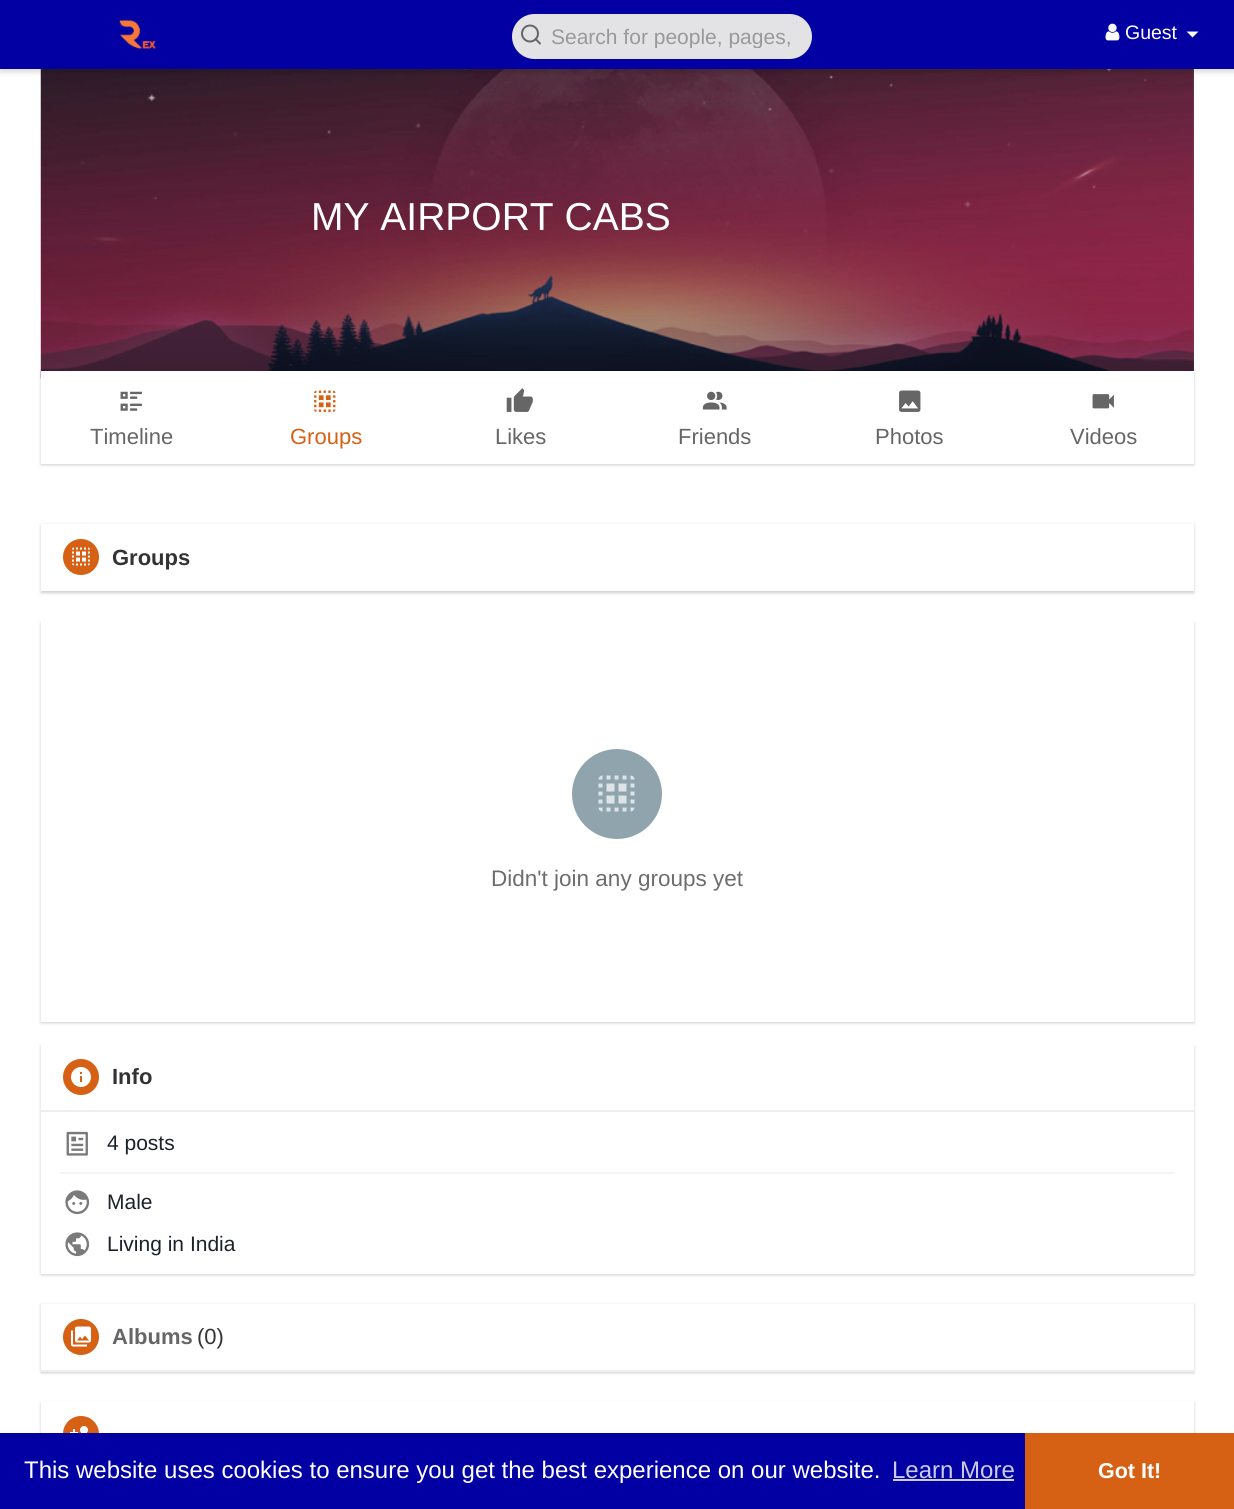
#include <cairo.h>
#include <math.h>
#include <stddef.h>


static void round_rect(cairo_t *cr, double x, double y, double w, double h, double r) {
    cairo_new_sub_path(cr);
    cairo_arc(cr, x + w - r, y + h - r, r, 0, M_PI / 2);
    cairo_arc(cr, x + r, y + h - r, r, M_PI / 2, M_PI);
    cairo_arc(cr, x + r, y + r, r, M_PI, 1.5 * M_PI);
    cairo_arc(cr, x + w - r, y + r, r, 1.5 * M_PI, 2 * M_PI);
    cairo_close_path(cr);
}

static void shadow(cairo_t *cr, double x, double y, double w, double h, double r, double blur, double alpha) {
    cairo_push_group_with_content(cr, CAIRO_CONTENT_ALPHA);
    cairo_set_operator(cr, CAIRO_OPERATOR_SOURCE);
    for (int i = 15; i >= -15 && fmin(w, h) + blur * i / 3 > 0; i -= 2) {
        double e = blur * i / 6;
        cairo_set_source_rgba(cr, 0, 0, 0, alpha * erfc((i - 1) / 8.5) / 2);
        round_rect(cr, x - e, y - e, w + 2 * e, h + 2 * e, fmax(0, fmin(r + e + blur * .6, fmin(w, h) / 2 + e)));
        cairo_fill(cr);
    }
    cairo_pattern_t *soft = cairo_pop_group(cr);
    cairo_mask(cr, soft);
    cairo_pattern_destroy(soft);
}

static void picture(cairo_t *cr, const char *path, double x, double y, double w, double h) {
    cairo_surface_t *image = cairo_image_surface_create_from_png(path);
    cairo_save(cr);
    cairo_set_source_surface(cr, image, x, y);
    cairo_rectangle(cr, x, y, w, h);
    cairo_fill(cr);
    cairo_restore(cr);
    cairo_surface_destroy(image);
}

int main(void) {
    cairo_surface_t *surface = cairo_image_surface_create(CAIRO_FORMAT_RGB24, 1234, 1509);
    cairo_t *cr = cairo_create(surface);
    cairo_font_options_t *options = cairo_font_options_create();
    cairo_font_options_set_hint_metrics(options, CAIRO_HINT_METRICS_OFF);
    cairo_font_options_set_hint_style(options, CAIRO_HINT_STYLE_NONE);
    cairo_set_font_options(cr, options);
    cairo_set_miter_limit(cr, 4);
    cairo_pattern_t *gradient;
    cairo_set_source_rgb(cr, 1, 1, 1);
    cairo_paint(cr);
    picture(cr, "img3.png", 40, 69, 1154, 310);
    cairo_set_source_rgb(cr, 0, 0, 0);
    shadow(cr, 0, 3, 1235, 69, 0, 3, 0.15);
    cairo_set_source_rgb(cr, 0.008, 0, 0.639);
    cairo_rectangle(cr, 0, 0, 1234, 69);
    cairo_fill(cr);
    picture(cr, "img1.png", 119, 20, 37, 29);
    cairo_set_source_rgb(cr, 0.89, 0.89, 0.898);
    round_rect(cr, 512, 14, 300, 45, 22.5);
    cairo_fill(cr);
    cairo_arc(cr, 530, 33.5, 8, 0, 2 * M_PI);
    cairo_set_source_rgb(cr, 0.4, 0.4, 0.4);
    cairo_stroke(cr);
    cairo_new_path(cr);
    cairo_move_to(cr, 540, 43.5);
    cairo_line_to(cr, 535.5, 39);
    cairo_set_line_cap(cr, CAIRO_LINE_CAP_ROUND);
    cairo_set_line_join(cr, CAIRO_LINE_JOIN_ROUND);
    cairo_stroke(cr);
    cairo_save(cr);
    cairo_rectangle(cr, 551, 24, 241, 24);
    cairo_clip(cr);
    cairo_select_font_face(cr, "Liberation Sans", CAIRO_FONT_SLANT_NORMAL, CAIRO_FONT_WEIGHT_NORMAL);
    cairo_set_font_size(cr, 21);
    cairo_set_source_rgb(cr, 0.6, 0.6, 0.6);
    cairo_move_to(cr, 551, 44);
    cairo_show_text(cr, "Search for people, pages,");
    cairo_restore(cr);
    picture(cr, "img2.png", 1105, 23, 15, 18);
    cairo_select_font_face(cr, "Liberation Sans", CAIRO_FONT_SLANT_NORMAL, CAIRO_FONT_WEIGHT_NORMAL);
    cairo_set_font_size(cr, 19.5);
    cairo_set_source_rgb(cr, 1, 1, 1);
    cairo_move_to(cr, 1125, 39);
    cairo_show_text(cr, "Guest");
    cairo_set_source_rgb(cr, 0.98, 0.98, 0.98);
    cairo_new_path(cr);
    cairo_move_to(cr, 1186.5, 31.5);
    cairo_line_to(cr, 1198.5, 31.5);
    cairo_line_to(cr, 1192.5, 37.5);
    cairo_close_path(cr);
    cairo_fill(cr);
    gradient = cairo_pattern_create_linear(617, 88, 617, 389);
    cairo_pattern_add_color_stop_rgba(gradient, 0, 0, 0, 0, 0);
    cairo_pattern_add_color_stop_rgba(gradient, 1, 0, 0, 0, 0.45);
    cairo_set_source(cr, gradient);
    cairo_pattern_destroy(gradient);
    cairo_rectangle(cr, 41, 102, 1153, 269);
    cairo_fill(cr);
    cairo_set_font_size(cr, 39);
    cairo_set_source_rgb(cr, 1, 1, 1);
    cairo_move_to(cr, 311, 230);
    cairo_show_text(cr, "MY AIRPORT CABS");
    cairo_set_source_rgb(cr, 0, 0, 0);
    shadow(cr, 41, 372, 1153, 93, 0, 1.5, 0.2);
    cairo_set_source_rgb(cr, 1, 1, 1);
    cairo_rectangle(cr, 41, 371, 1153, 93);
    cairo_fill(cr);
    picture(cr, "img4.png", 120, 391, 22, 20);
    cairo_set_font_size(cr, 22);
    cairo_set_source_rgb(cr, 0.4, 0.4, 0.4);
    cairo_move_to(cr, 90, 444);
    cairo_show_text(cr, "Timeline");
    picture(cr, "img5.png", 314, 390, 22, 22);
    cairo_set_source_rgb(cr, 0.839, 0.376, 0.075);
    cairo_move_to(cr, 290, 444);
    cairo_show_text(cr, "Groups");
    picture(cr, "img6.png", 506, 388, 27, 24);
    cairo_set_source_rgb(cr, 0.4, 0.4, 0.4);
    cairo_move_to(cr, 495, 444);
    cairo_show_text(cr, "Likes");
    picture(cr, "img7.png", 702, 391, 25, 19);
    cairo_move_to(cr, 678, 444);
    cairo_show_text(cr, "Friends");
    picture(cr, "img8.png", 899, 390, 22, 22);
    cairo_move_to(cr, 875, 444);
    cairo_show_text(cr, "Photos");
    picture(cr, "img9.png", 1092, 394, 22, 15);
    cairo_move_to(cr, 1070, 444);
    cairo_show_text(cr, "Videos");
    cairo_save(cr);
    cairo_set_fill_rule(cr, CAIRO_FILL_RULE_EVEN_ODD);
    cairo_new_path(cr);
    cairo_move_to(cr, 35, 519);
    cairo_line_to(cr, 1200, 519);
    cairo_line_to(cr, 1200, 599);
    cairo_line_to(cr, 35, 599);
    cairo_close_path(cr);
    cairo_move_to(cr, 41, 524);
    cairo_line_to(cr, 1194, 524);
    cairo_line_to(cr, 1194, 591);
    cairo_line_to(cr, 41, 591);
    cairo_close_path(cr);
    cairo_clip(cr);
    cairo_set_source_rgb(cr, 0, 0, 0);
    shadow(cr, 41, 525, 1153, 68, 0, 1.5, 0.2);
    cairo_restore(cr);
    cairo_set_source_rgb(cr, 0.839, 0.376, 0.075);
    cairo_arc(cr, 81, 557, 18, 0, 2 * M_PI);
    cairo_fill(cr);
    picture(cr, "img10.png", 72, 547, 18, 19);
    cairo_select_font_face(cr, "Liberation Sans", CAIRO_FONT_SLANT_NORMAL, CAIRO_FONT_WEIGHT_BOLD);
    cairo_set_source_rgb(cr, 0.2, 0.2, 0.2);
    cairo_move_to(cr, 112, 565);
    cairo_show_text(cr, "Groups");
    cairo_set_source_rgb(cr, 0, 0, 0);
    shadow(cr, 41, 623, 1153, 400, 0, 1.5, 0.2);
    cairo_set_source_rgb(cr, 1, 1, 1);
    cairo_rectangle(cr, 41, 621, 1153, 401);
    cairo_fill(cr);
    cairo_set_source_rgb(cr, 0.565, 0.643, 0.682);
    cairo_arc(cr, 617, 794, 45, 0, 2 * M_PI);
    cairo_fill(cr);
    picture(cr, "img11.png", 598, 775, 37, 37);
    cairo_select_font_face(cr, "Liberation Sans", CAIRO_FONT_SLANT_NORMAL, CAIRO_FONT_WEIGHT_NORMAL);
    cairo_set_font_size(cr, 22.5);
    cairo_set_source_rgb(cr, 0.427, 0.427, 0.427);
    cairo_move_to(cr, 491, 886);
    cairo_show_text(cr, "Didn't join any groups yet");
    cairo_set_source_rgb(cr, 0, 0, 0);
    shadow(cr, 41, 1046, 1153, 229, 0, 1.5, 0.2);
    cairo_set_source_rgb(cr, 1, 1, 1);
    cairo_rectangle(cr, 41, 1044, 1153, 230);
    cairo_fill(cr);
    cairo_set_source_rgb(cr, 0.933, 0.933, 0.933);
    cairo_rectangle(cr, 41, 1110, 1153, 2);
    cairo_fill(cr);
    cairo_set_source_rgb(cr, 0.839, 0.376, 0.075);
    cairo_arc(cr, 81, 1077, 18, 0, 2 * M_PI);
    cairo_fill(cr);
    picture(cr, "img12.png", 71, 1067, 20, 20);
    cairo_select_font_face(cr, "Liberation Sans", CAIRO_FONT_SLANT_NORMAL, CAIRO_FONT_WEIGHT_BOLD);
    cairo_set_font_size(cr, 22);
    cairo_set_source_rgb(cr, 0.2, 0.2, 0.2);
    cairo_move_to(cr, 112, 1084);
    cairo_show_text(cr, "Info");
    picture(cr, "img13.png", 66, 1131, 22, 25);
    cairo_select_font_face(cr, "Liberation Sans", CAIRO_FONT_SLANT_NORMAL, CAIRO_FONT_WEIGHT_NORMAL);
    cairo_set_font_size(cr, 21);
    cairo_set_source_rgb(cr, 0.114, 0.129, 0.161);
    cairo_move_to(cr, 107, 1150);
    cairo_show_text(cr, "4 posts");
    cairo_set_source_rgb(cr, 0.957, 0.957, 0.957);
    cairo_rectangle(cr, 60, 1172, 1115, 2);
    cairo_fill(cr);
    picture(cr, "img14.png", 65, 1190, 25, 25);
    cairo_set_source_rgb(cr, 0.114, 0.129, 0.161);
    cairo_move_to(cr, 107, 1209);
    cairo_show_text(cr, "Male");
    picture(cr, "img15.png", 65, 1232, 25, 25);
    cairo_move_to(cr, 107, 1251);
    cairo_show_text(cr, "Living in India");
    cairo_save(cr);
    cairo_set_fill_rule(cr, CAIRO_FILL_RULE_EVEN_ODD);
    cairo_new_path(cr);
    cairo_move_to(cr, 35, 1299);
    cairo_line_to(cr, 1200, 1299);
    cairo_line_to(cr, 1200, 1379);
    cairo_line_to(cr, 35, 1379);
    cairo_close_path(cr);
    cairo_move_to(cr, 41, 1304);
    cairo_line_to(cr, 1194, 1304);
    cairo_line_to(cr, 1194, 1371);
    cairo_line_to(cr, 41, 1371);
    cairo_close_path(cr);
    cairo_clip(cr);
    cairo_set_source_rgb(cr, 0, 0, 0);
    shadow(cr, 41, 1305, 1153, 68, 0, 1.5, 0.2);
    cairo_restore(cr);
    cairo_set_source_rgb(cr, 0.933, 0.933, 0.933);
    cairo_rectangle(cr, 41, 1370, 1153, 2);
    cairo_fill(cr);
    cairo_set_source_rgb(cr, 0.839, 0.376, 0.075);
    cairo_arc(cr, 81, 1337, 18, 0, 2 * M_PI);
    cairo_fill(cr);
    picture(cr, "img16.png", 71, 1326, 20, 21);
    cairo_select_font_face(cr, "Liberation Sans", CAIRO_FONT_SLANT_NORMAL, CAIRO_FONT_WEIGHT_BOLD);
    cairo_set_font_size(cr, 22);
    cairo_set_source_rgb(cr, 0.4, 0.4, 0.4);
    cairo_move_to(cr, 112, 1344);
    cairo_show_text(cr, "Albums");
    cairo_select_font_face(cr, "Liberation Sans", CAIRO_FONT_SLANT_NORMAL, CAIRO_FONT_WEIGHT_NORMAL);
    cairo_set_source_rgb(cr, 0.2, 0.2, 0.2);
    cairo_move_to(cr, 197, 1344);
    cairo_show_text(cr, "(0)");
    cairo_set_source_rgb(cr, 0, 0, 0);
    shadow(cr, 41, 1403, 1153, 67, 0, 1.5, 0.2);
    cairo_set_source_rgb(cr, 1, 1, 1);
    cairo_rectangle(cr, 41, 1401, 1153, 32);
    cairo_fill(cr);
    cairo_set_source_rgb(cr, 0.839, 0.376, 0.075);
    cairo_arc(cr, 81, 1434, 18, 0, 2 * M_PI);
    cairo_fill(cr);
    picture(cr, "img17.png", 70, 1426, 18, 7);
    cairo_set_source_rgb(cr, 0.008, 0, 0.639);
    cairo_rectangle(cr, 0, 1433, 1025, 76);
    cairo_fill(cr);
    cairo_set_font_size(cr, 24);
    cairo_set_source_rgb(cr, 1, 1, 1);
    cairo_move_to(cr, 24, 1478);
    cairo_show_text(cr, "This website uses cookies to ensure you get the best experience on our website.");
    cairo_set_source_rgb(cr, 0.8, 0.8, 0.929);
    cairo_move_to(cr, 892, 1478);
    cairo_show_text(cr, "Learn More");
    cairo_rectangle(cr, 893, 1479, 121, 2);
    cairo_fill(cr);
    cairo_set_source_rgb(cr, 0.839, 0.376, 0.075);
    cairo_rectangle(cr, 1025, 1433, 209, 76);
    cairo_fill(cr);
    cairo_select_font_face(cr, "Liberation Sans", CAIRO_FONT_SLANT_NORMAL, CAIRO_FONT_WEIGHT_BOLD);
    cairo_set_font_size(cr, 21.5);
    cairo_set_source_rgb(cr, 1, 1, 1);
    cairo_move_to(cr, 1098, 1478);
    cairo_show_text(cr, "Got It!");
    cairo_surface_write_to_png(surface, "page.png");
    cairo_font_options_destroy(options);
    cairo_destroy(cr);
    cairo_surface_destroy(surface);
    return 0;
}
